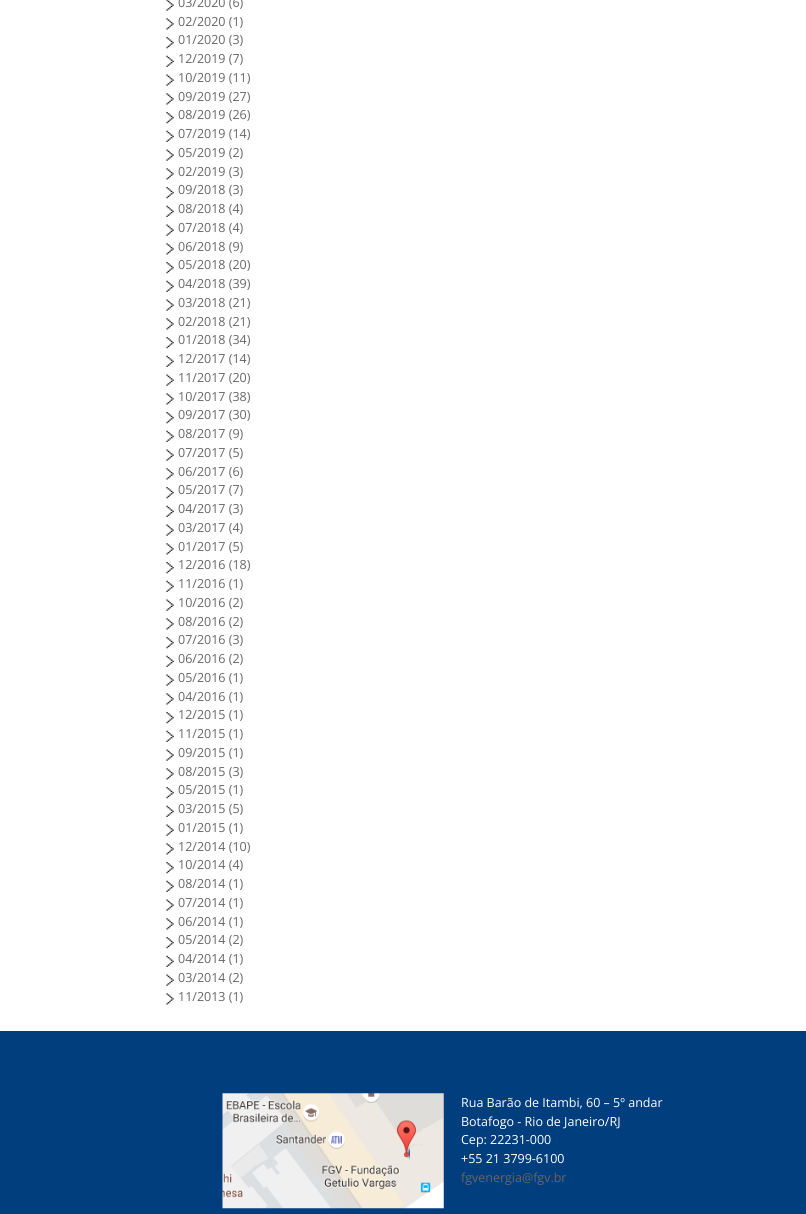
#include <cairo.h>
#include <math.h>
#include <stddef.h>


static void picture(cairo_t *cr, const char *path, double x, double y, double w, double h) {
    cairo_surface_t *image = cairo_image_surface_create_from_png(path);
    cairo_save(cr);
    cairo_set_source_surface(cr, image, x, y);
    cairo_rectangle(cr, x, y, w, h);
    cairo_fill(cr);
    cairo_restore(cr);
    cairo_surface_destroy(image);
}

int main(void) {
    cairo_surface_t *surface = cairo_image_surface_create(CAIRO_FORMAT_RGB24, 806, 1214);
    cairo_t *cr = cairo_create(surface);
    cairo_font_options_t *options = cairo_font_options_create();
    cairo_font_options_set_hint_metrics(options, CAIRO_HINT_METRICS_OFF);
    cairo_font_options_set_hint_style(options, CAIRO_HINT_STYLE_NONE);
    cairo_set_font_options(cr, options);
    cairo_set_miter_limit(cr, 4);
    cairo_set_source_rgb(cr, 1, 1, 1);
    cairo_paint(cr);
    picture(cr, "img1.png", 166, 0, 8, 11);
    cairo_select_font_face(cr, "Open Sans", CAIRO_FONT_SLANT_NORMAL, CAIRO_FONT_WEIGHT_NORMAL);
    cairo_set_font_size(cr, 12.5);
    cairo_set_source_rgb(cr, 0.4, 0.4, 0.4);
    cairo_move_to(cr, 178, 7);
    cairo_show_text(cr, "03/2020 (6)");
    picture(cr, "img2.png", 166, 18, 8, 12);
    cairo_move_to(cr, 178, 26);
    cairo_show_text(cr, "02/2020 (1)");
    picture(cr, "img3.png", 166, 37, 8, 12);
    cairo_move_to(cr, 178, 44);
    cairo_show_text(cr, "01/2020 (3)");
    picture(cr, "img4.png", 166, 55, 8, 12);
    cairo_move_to(cr, 178, 63);
    cairo_show_text(cr, "12/2019 (7)");
    picture(cr, "img5.png", 166, 74, 8, 12);
    cairo_move_to(cr, 178, 82);
    cairo_show_text(cr, "10/2019 (11)");
    picture(cr, "img2.png", 166, 93, 8, 12);
    cairo_move_to(cr, 178, 101);
    cairo_show_text(cr, "09/2019 (27)");
    picture(cr, "img3.png", 166, 112, 8, 12);
    cairo_move_to(cr, 178, 119);
    cairo_show_text(cr, "08/2019 (26)");
    picture(cr, "img4.png", 166, 130, 8, 12);
    cairo_move_to(cr, 178, 138);
    cairo_show_text(cr, "07/2019 (14)");
    picture(cr, "img5.png", 166, 149, 8, 12);
    cairo_move_to(cr, 178, 157);
    cairo_show_text(cr, "05/2019 (2)");
    picture(cr, "img2.png", 166, 168, 8, 12);
    cairo_move_to(cr, 178, 176);
    cairo_show_text(cr, "02/2019 (3)");
    picture(cr, "img3.png", 166, 187, 8, 12);
    cairo_move_to(cr, 178, 194);
    cairo_show_text(cr, "09/2018 (3)");
    picture(cr, "img4.png", 166, 205, 8, 12);
    cairo_move_to(cr, 178, 213);
    cairo_show_text(cr, "08/2018 (4)");
    picture(cr, "img5.png", 166, 224, 8, 12);
    cairo_move_to(cr, 178, 232);
    cairo_show_text(cr, "07/2018 (4)");
    picture(cr, "img2.png", 166, 243, 8, 12);
    cairo_move_to(cr, 178, 251);
    cairo_show_text(cr, "06/2018 (9)");
    picture(cr, "img3.png", 166, 262, 8, 12);
    cairo_move_to(cr, 178, 269);
    cairo_show_text(cr, "05/2018 (20)");
    picture(cr, "img4.png", 166, 280, 8, 12);
    cairo_move_to(cr, 178, 288);
    cairo_show_text(cr, "04/2018 (39)");
    picture(cr, "img6.png", 166, 299, 8, 12);
    cairo_move_to(cr, 178, 307);
    cairo_show_text(cr, "03/2018 (21)");
    picture(cr, "img2.png", 166, 318, 8, 12);
    cairo_move_to(cr, 178, 326);
    cairo_show_text(cr, "02/2018 (21)");
    picture(cr, "img3.png", 166, 337, 8, 12);
    cairo_move_to(cr, 178, 344);
    cairo_show_text(cr, "01/2018 (34)");
    picture(cr, "img4.png", 166, 355, 8, 12);
    cairo_move_to(cr, 178, 363);
    cairo_show_text(cr, "12/2017 (14)");
    picture(cr, "img5.png", 166, 374, 8, 12);
    cairo_move_to(cr, 178, 382);
    cairo_show_text(cr, "11/2017 (20)");
    picture(cr, "img2.png", 166, 393, 8, 12);
    cairo_move_to(cr, 178, 401);
    cairo_show_text(cr, "10/2017 (38)");
    picture(cr, "img3.png", 166, 412, 8, 12);
    cairo_move_to(cr, 178, 419);
    cairo_show_text(cr, "09/2017 (30)");
    picture(cr, "img4.png", 166, 430, 8, 12);
    cairo_move_to(cr, 178, 438);
    cairo_show_text(cr, "08/2017 (9)");
    picture(cr, "img5.png", 166, 449, 8, 12);
    cairo_move_to(cr, 178, 457);
    cairo_show_text(cr, "07/2017 (5)");
    picture(cr, "img2.png", 166, 468, 8, 12);
    cairo_move_to(cr, 178, 476);
    cairo_show_text(cr, "06/2017 (6)");
    picture(cr, "img3.png", 166, 487, 8, 12);
    cairo_move_to(cr, 178, 494);
    cairo_show_text(cr, "05/2017 (7)");
    picture(cr, "img4.png", 166, 505, 8, 12);
    cairo_move_to(cr, 178, 513);
    cairo_show_text(cr, "04/2017 (3)");
    picture(cr, "img7.png", 166, 524, 8, 12);
    cairo_move_to(cr, 178, 532);
    cairo_show_text(cr, "03/2017 (4)");
    picture(cr, "img2.png", 166, 543, 8, 12);
    cairo_move_to(cr, 178, 551);
    cairo_show_text(cr, "01/2017 (5)");
    picture(cr, "img3.png", 166, 562, 8, 12);
    cairo_move_to(cr, 178, 569);
    cairo_show_text(cr, "12/2016 (18)");
    picture(cr, "img4.png", 166, 580, 8, 12);
    cairo_move_to(cr, 178, 588);
    cairo_show_text(cr, "11/2016 (1)");
    picture(cr, "img8.png", 166, 599, 8, 12);
    cairo_move_to(cr, 178, 607);
    cairo_show_text(cr, "10/2016 (2)");
    picture(cr, "img2.png", 166, 618, 8, 12);
    cairo_move_to(cr, 178, 626);
    cairo_show_text(cr, "08/2016 (2)");
    picture(cr, "img3.png", 166, 637, 8, 12);
    cairo_move_to(cr, 178, 644);
    cairo_show_text(cr, "07/2016 (3)");
    picture(cr, "img4.png", 166, 655, 8, 12);
    cairo_move_to(cr, 178, 663);
    cairo_show_text(cr, "06/2016 (2)");
    picture(cr, "img5.png", 166, 674, 8, 12);
    cairo_move_to(cr, 178, 682);
    cairo_show_text(cr, "05/2016 (1)");
    picture(cr, "img2.png", 166, 693, 8, 12);
    cairo_move_to(cr, 178, 701);
    cairo_show_text(cr, "04/2016 (1)");
    picture(cr, "img3.png", 166, 712, 8, 12);
    cairo_move_to(cr, 178, 719);
    cairo_show_text(cr, "12/2015 (1)");
    picture(cr, "img4.png", 166, 730, 8, 12);
    cairo_move_to(cr, 178, 738);
    cairo_show_text(cr, "11/2015 (1)");
    picture(cr, "img5.png", 166, 749, 8, 12);
    cairo_move_to(cr, 178, 757);
    cairo_show_text(cr, "09/2015 (1)");
    picture(cr, "img2.png", 166, 768, 8, 12);
    cairo_move_to(cr, 178, 776);
    cairo_show_text(cr, "08/2015 (3)");
    picture(cr, "img9.png", 166, 787, 8, 12);
    cairo_move_to(cr, 178, 794);
    cairo_show_text(cr, "05/2015 (1)");
    picture(cr, "img4.png", 166, 805, 8, 12);
    cairo_move_to(cr, 178, 813);
    cairo_show_text(cr, "03/2015 (5)");
    picture(cr, "img5.png", 166, 824, 8, 12);
    cairo_move_to(cr, 178, 832);
    cairo_show_text(cr, "01/2015 (1)");
    picture(cr, "img2.png", 166, 843, 8, 12);
    cairo_move_to(cr, 178, 851);
    cairo_show_text(cr, "12/2014 (10)");
    picture(cr, "img3.png", 166, 862, 8, 12);
    cairo_move_to(cr, 178, 869);
    cairo_show_text(cr, "10/2014 (4)");
    picture(cr, "img4.png", 166, 880, 8, 12);
    cairo_move_to(cr, 178, 888);
    cairo_show_text(cr, "08/2014 (1)");
    picture(cr, "img5.png", 166, 899, 8, 12);
    cairo_move_to(cr, 178, 907);
    cairo_show_text(cr, "07/2014 (1)");
    picture(cr, "img2.png", 166, 918, 8, 12);
    cairo_move_to(cr, 178, 926);
    cairo_show_text(cr, "06/2014 (1)");
    picture(cr, "img3.png", 166, 937, 8, 12);
    cairo_move_to(cr, 178, 944);
    cairo_show_text(cr, "05/2014 (2)");
    picture(cr, "img4.png", 166, 955, 8, 12);
    cairo_move_to(cr, 178, 963);
    cairo_show_text(cr, "04/2014 (1)");
    picture(cr, "img5.png", 166, 974, 8, 12);
    cairo_move_to(cr, 178, 982);
    cairo_show_text(cr, "03/2014 (2)");
    picture(cr, "img2.png", 166, 993, 8, 12);
    cairo_move_to(cr, 178, 1001);
    cairo_show_text(cr, "11/2013 (1)");
    cairo_set_source_rgb(cr, 0, 0.243, 0.494);
    cairo_rectangle(cr, 0, 1031, 806, 183);
    cairo_fill(cr);
    picture(cr, "img10.png", 222, 1093, 222, 116);
    cairo_set_source_rgb(cr, 1, 1, 1);
    cairo_move_to(cr, 461, 1107);
    cairo_show_text(cr, "Rua Barão de Itambi, 60 – 5º andar");
    cairo_move_to(cr, 461, 1126);
    cairo_show_text(cr, "Botafogo - Rio de Janeiro/RJ");
    cairo_move_to(cr, 461, 1144);
    cairo_show_text(cr, "Cep: 22231-000");
    cairo_move_to(cr, 461, 1163);
    cairo_show_text(cr, "+55 21 3799-6100");
    cairo_set_source_rgb(cr, 0.4, 0.4, 0.4);
    cairo_move_to(cr, 461, 1182);
    cairo_show_text(cr, "fgvenergia@fgv.br");
    cairo_surface_write_to_png(surface, "page.png");
    cairo_font_options_destroy(options);
    cairo_destroy(cr);
    cairo_surface_destroy(surface);
    return 0;
}
